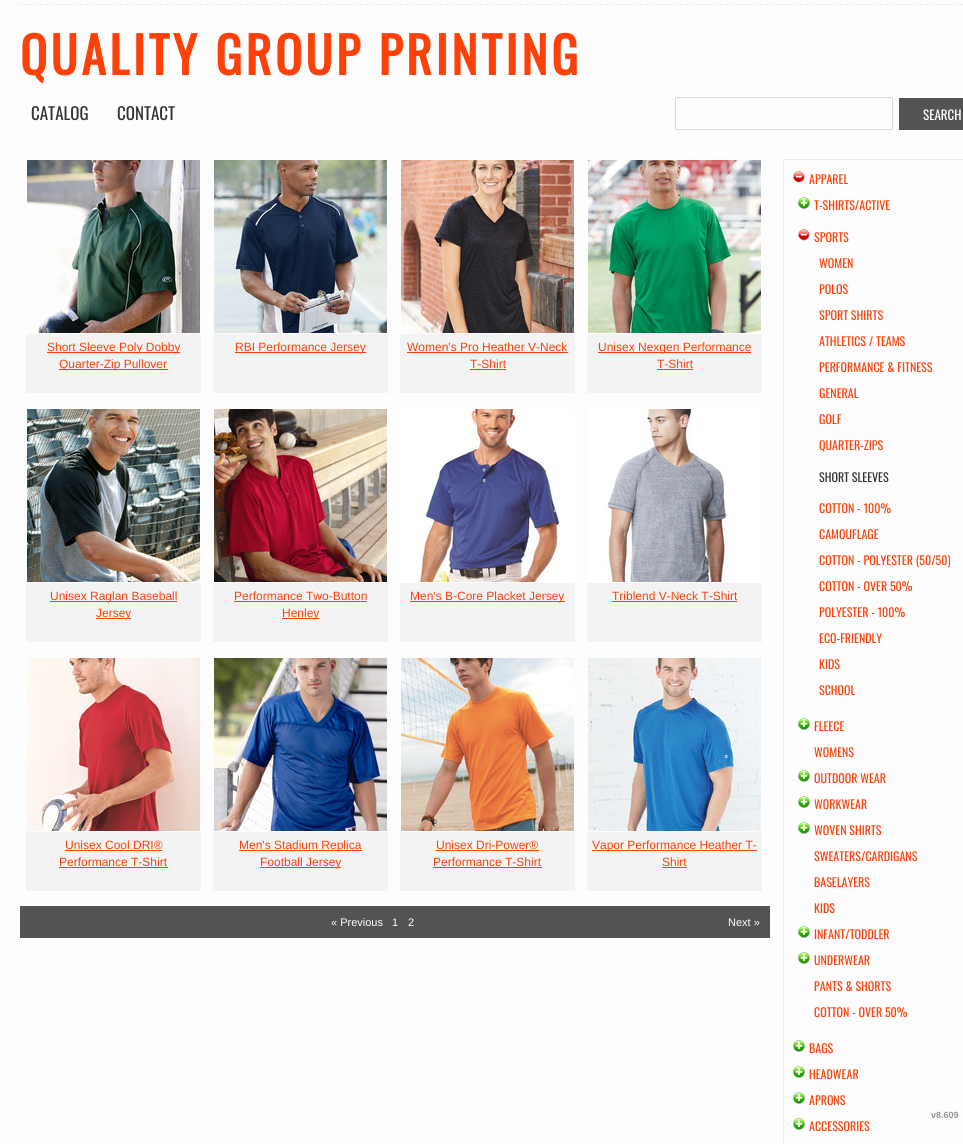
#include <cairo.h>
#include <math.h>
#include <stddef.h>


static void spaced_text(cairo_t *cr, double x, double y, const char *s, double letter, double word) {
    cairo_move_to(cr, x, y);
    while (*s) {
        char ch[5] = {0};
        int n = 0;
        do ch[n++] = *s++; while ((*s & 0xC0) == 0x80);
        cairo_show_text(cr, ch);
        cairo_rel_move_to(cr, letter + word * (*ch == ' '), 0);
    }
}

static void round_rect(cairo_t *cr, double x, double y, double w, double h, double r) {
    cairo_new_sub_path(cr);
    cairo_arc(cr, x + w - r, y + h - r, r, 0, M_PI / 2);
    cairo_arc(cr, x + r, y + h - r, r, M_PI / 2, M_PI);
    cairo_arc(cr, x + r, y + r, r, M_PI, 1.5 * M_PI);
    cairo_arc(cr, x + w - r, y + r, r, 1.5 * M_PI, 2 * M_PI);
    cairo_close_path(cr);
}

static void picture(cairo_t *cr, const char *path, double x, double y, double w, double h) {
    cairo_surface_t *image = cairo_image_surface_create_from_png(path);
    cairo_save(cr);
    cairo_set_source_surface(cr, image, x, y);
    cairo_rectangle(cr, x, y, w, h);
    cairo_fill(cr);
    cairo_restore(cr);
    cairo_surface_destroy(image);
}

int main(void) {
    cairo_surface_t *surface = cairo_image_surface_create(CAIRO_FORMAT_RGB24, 963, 1144);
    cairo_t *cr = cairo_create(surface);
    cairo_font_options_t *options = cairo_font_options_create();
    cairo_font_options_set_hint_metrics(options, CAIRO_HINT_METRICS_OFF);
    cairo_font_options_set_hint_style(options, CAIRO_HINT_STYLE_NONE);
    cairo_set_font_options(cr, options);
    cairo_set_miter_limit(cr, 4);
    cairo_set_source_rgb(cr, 0.992, 0.992, 0.992);
    cairo_paint(cr);
    cairo_new_path(cr);
    cairo_move_to(cr, 20, 4.5);
    cairo_line_to(cr, 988, 4.5);
    cairo_set_source_rgb(cr, 0.918, 0.918, 0.918);
    cairo_set_line_width(cr, 1);
    cairo_set_dash(cr, (double[]){3, 2}, 2, 0);
    cairo_stroke(cr);
    cairo_select_font_face(cr, "Oswald", CAIRO_FONT_SLANT_NORMAL, CAIRO_FONT_WEIGHT_BOLD);
    cairo_set_font_size(cr, 50);
    cairo_set_source_rgb(cr, 0.996, 0.255, 0.035);
    spaced_text(cr, 20, 75, "QUALITY GROUP PRINTING", 3.5, 0);
    cairo_select_font_face(cr, "Oswald", CAIRO_FONT_SLANT_NORMAL, CAIRO_FONT_WEIGHT_NORMAL);
    cairo_set_font_size(cr, 17);
    cairo_set_source_rgb(cr, 0.2, 0.2, 0.2);
    cairo_move_to(cr, 31, 120);
    cairo_show_text(cr, "CATALOG");
    cairo_move_to(cr, 117, 120);
    cairo_show_text(cr, "CONTACT");
    round_rect(cr, 675.5, 97.5, 217, 32, 0.5);
    cairo_set_source_rgb(cr, 0.863, 0.859, 0.859);
    cairo_set_dash(cr, NULL, 0, 0);
    cairo_stroke(cr);
    cairo_set_source_rgb(cr, 0.325, 0.325, 0.333);
    cairo_rectangle(cr, 899, 98, 64, 32);
    cairo_fill(cr);
    cairo_set_font_size(cr, 13);
    cairo_set_source_rgb(cr, 1, 1, 1);
    cairo_move_to(cr, 923, 120);
    cairo_show_text(cr, "SEARCH");
    picture(cr, "img1.png", 27, 160, 173, 173);
    cairo_set_source_rgb(cr, 0.953, 0.953, 0.953);
    cairo_rectangle(cr, 26, 334, 175, 59);
    cairo_fill(cr);
    cairo_set_source_rgb(cr, 0.996, 0.255, 0.035);
    cairo_rectangle(cr, 47, 352, 133, 1);
    cairo_fill(cr);
    cairo_select_font_face(cr, "Liberation Sans", CAIRO_FONT_SLANT_NORMAL, CAIRO_FONT_WEIGHT_NORMAL);
    cairo_set_font_size(cr, 12);
    cairo_move_to(cr, 47, 351);
    cairo_show_text(cr, "Short Sleeve Poly Dobby");
    cairo_rectangle(cr, 59, 369, 109, 1);
    cairo_fill(cr);
    cairo_move_to(cr, 59, 368);
    cairo_show_text(cr, "Quarter-Zip Pullover");
    picture(cr, "img2.png", 214, 160, 173, 173);
    cairo_set_source_rgb(cr, 0.953, 0.953, 0.953);
    cairo_rectangle(cr, 213, 334, 175, 59);
    cairo_fill(cr);
    cairo_set_source_rgb(cr, 0.996, 0.255, 0.035);
    cairo_rectangle(cr, 235, 352, 131, 1);
    cairo_fill(cr);
    cairo_move_to(cr, 235, 351);
    cairo_show_text(cr, "RBI Performance Jersey");
    picture(cr, "img3.png", 401, 160, 173, 173);
    cairo_set_source_rgb(cr, 0.953, 0.953, 0.953);
    cairo_rectangle(cr, 400, 334, 175, 59);
    cairo_fill(cr);
    cairo_set_source_rgb(cr, 0.996, 0.255, 0.035);
    cairo_move_to(cr, 407, 351);
    cairo_show_text(cr, "Women's Pro Heather V-Neck");
    cairo_rectangle(cr, 407, 352, 161, 1);
    cairo_fill(cr);
    cairo_move_to(cr, 470, 368);
    cairo_show_text(cr, "T-Shirt");
    cairo_rectangle(cr, 470, 369, 36, 1);
    cairo_fill(cr);
    picture(cr, "img4.png", 588, 160, 173, 173);
    cairo_set_source_rgb(cr, 0.953, 0.953, 0.953);
    cairo_rectangle(cr, 587, 334, 175, 59);
    cairo_fill(cr);
    cairo_set_source_rgb(cr, 0.996, 0.255, 0.035);
    cairo_rectangle(cr, 598, 352, 153, 1);
    cairo_fill(cr);
    cairo_move_to(cr, 598, 351);
    cairo_show_text(cr, "Unisex Nexgen Performance");
    cairo_move_to(cr, 657, 368);
    cairo_show_text(cr, "T-Shirt");
    cairo_rectangle(cr, 657, 369, 36, 1);
    cairo_fill(cr);
    picture(cr, "img5.png", 27, 409, 173, 173);
    cairo_set_source_rgb(cr, 0.953, 0.953, 0.953);
    cairo_rectangle(cr, 26, 583, 175, 59);
    cairo_fill(cr);
    cairo_set_source_rgb(cr, 0.996, 0.255, 0.035);
    cairo_rectangle(cr, 50, 601, 127, 1);
    cairo_fill(cr);
    cairo_move_to(cr, 50, 600);
    cairo_show_text(cr, "Unisex Raglan Baseball");
    cairo_rectangle(cr, 96, 618, 35, 1);
    cairo_fill(cr);
    cairo_move_to(cr, 96, 617);
    cairo_show_text(cr, "Jersey");
    picture(cr, "img6.png", 214, 409, 173, 173);
    cairo_set_source_rgb(cr, 0.953, 0.953, 0.953);
    cairo_rectangle(cr, 213, 583, 175, 59);
    cairo_fill(cr);
    cairo_set_source_rgb(cr, 0.996, 0.255, 0.035);
    cairo_move_to(cr, 234, 600);
    cairo_show_text(cr, "Performance Two-Button");
    cairo_rectangle(cr, 234, 601, 133, 1);
    cairo_fill(cr);
    cairo_rectangle(cr, 282, 618, 37, 1);
    cairo_fill(cr);
    cairo_move_to(cr, 282, 617);
    cairo_show_text(cr, "Henley");
    picture(cr, "img7.png", 401, 409, 173, 173);
    cairo_set_source_rgb(cr, 0.953, 0.953, 0.953);
    cairo_rectangle(cr, 400, 583, 175, 59);
    cairo_fill(cr);
    cairo_set_source_rgb(cr, 0.996, 0.255, 0.035);
    cairo_rectangle(cr, 410, 601, 155, 1);
    cairo_fill(cr);
    cairo_move_to(cr, 410, 600);
    cairo_show_text(cr, "Men's B-Core Placket Jersey");
    picture(cr, "img8.png", 588, 409, 173, 173);
    cairo_set_source_rgb(cr, 0.953, 0.953, 0.953);
    cairo_rectangle(cr, 587, 583, 175, 59);
    cairo_fill(cr);
    cairo_set_source_rgb(cr, 0.996, 0.255, 0.035);
    cairo_move_to(cr, 612, 600);
    cairo_show_text(cr, "Triblend V-Neck T-Shirt");
    cairo_rectangle(cr, 612, 601, 125, 1);
    cairo_fill(cr);
    picture(cr, "img9.png", 27, 658, 173, 173);
    cairo_set_source_rgb(cr, 0.953, 0.953, 0.953);
    cairo_rectangle(cr, 26, 832, 175, 59);
    cairo_fill(cr);
    cairo_set_source_rgb(cr, 0.996, 0.255, 0.035);
    cairo_move_to(cr, 65, 849);
    cairo_show_text(cr, "Unisex Cool DRI®");
    cairo_rectangle(cr, 65, 850, 97, 1);
    cairo_fill(cr);
    cairo_move_to(cr, 59, 866);
    cairo_show_text(cr, "Performance T-Shirt");
    cairo_rectangle(cr, 59, 867, 109, 1);
    cairo_fill(cr);
    picture(cr, "img10.png", 214, 658, 173, 173);
    cairo_set_source_rgb(cr, 0.953, 0.953, 0.953);
    cairo_rectangle(cr, 213, 832, 175, 59);
    cairo_fill(cr);
    cairo_set_source_rgb(cr, 0.996, 0.255, 0.035);
    cairo_rectangle(cr, 239, 850, 123, 1);
    cairo_fill(cr);
    cairo_move_to(cr, 239, 849);
    cairo_show_text(cr, "Men's Stadium Replica");
    cairo_rectangle(cr, 260, 867, 81, 1);
    cairo_fill(cr);
    cairo_move_to(cr, 260, 866);
    cairo_show_text(cr, "Football Jersey");
    picture(cr, "img11.png", 401, 658, 173, 173);
    cairo_set_source_rgb(cr, 0.953, 0.953, 0.953);
    cairo_rectangle(cr, 400, 832, 175, 59);
    cairo_fill(cr);
    cairo_set_source_rgb(cr, 0.996, 0.255, 0.035);
    cairo_move_to(cr, 436, 849);
    cairo_show_text(cr, "Unisex Dri-Power®");
    cairo_rectangle(cr, 436, 850, 103, 1);
    cairo_fill(cr);
    cairo_move_to(cr, 433, 866);
    cairo_show_text(cr, "Performance T-Shirt");
    cairo_rectangle(cr, 433, 867, 109, 1);
    cairo_fill(cr);
    picture(cr, "img12.png", 588, 658, 173, 173);
    cairo_set_source_rgb(cr, 0.953, 0.953, 0.953);
    cairo_rectangle(cr, 587, 832, 175, 59);
    cairo_fill(cr);
    cairo_set_source_rgb(cr, 0.996, 0.255, 0.035);
    cairo_rectangle(cr, 592, 850, 165, 1);
    cairo_fill(cr);
    cairo_move_to(cr, 592, 849);
    cairo_show_text(cr, "Vapor Performance Heather T-");
    cairo_move_to(cr, 662, 866);
    cairo_show_text(cr, "Shirt");
    cairo_rectangle(cr, 662, 867, 25, 1);
    cairo_fill(cr);
    cairo_set_source_rgb(cr, 0.325, 0.325, 0.333);
    cairo_rectangle(cr, 20, 906, 750, 32);
    cairo_fill(cr);
    cairo_set_font_size(cr, 11);
    cairo_set_source_rgb(cr, 1, 1, 1);
    cairo_move_to(cr, 331, 926);
    cairo_show_text(cr, "« Previous");
    cairo_move_to(cr, 392, 926);
    cairo_show_text(cr, "1");
    cairo_move_to(cr, 408, 926);
    cairo_show_text(cr, "2");
    cairo_move_to(cr, 728, 926);
    cairo_show_text(cr, "Next »");
    cairo_set_source_rgb(cr, 0.918, 0.918, 0.918);
    cairo_set_fill_rule(cr, CAIRO_FILL_RULE_EVEN_ODD);
    cairo_new_path(cr);
    cairo_move_to(cr, 786, 159);
    cairo_curve_to(cr, 784, 159, 783, 160, 783, 162);
    cairo_line_to(cr, 783, 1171);
    cairo_line_to(cr, 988, 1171);
    cairo_line_to(cr, 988, 162);
    cairo_curve_to(cr, 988, 160, 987, 159, 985, 159);
    cairo_close_path(cr);
    cairo_move_to(cr, 784, 160);
    cairo_line_to(cr, 784, 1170);
    cairo_line_to(cr, 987, 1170);
    cairo_line_to(cr, 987, 160);
    cairo_close_path(cr);
    cairo_fill(cr);
    picture(cr, "img13.png", 793, 171, 12, 12);
    cairo_select_font_face(cr, "Oswald", CAIRO_FONT_SLANT_NORMAL, CAIRO_FONT_WEIGHT_NORMAL);
    cairo_set_font_size(cr, 12);
    cairo_set_source_rgb(cr, 0.996, 0.255, 0.035);
    cairo_move_to(cr, 809, 184);
    cairo_show_text(cr, "APPAREL");
    picture(cr, "img14.png", 798, 197, 12, 12);
    cairo_move_to(cr, 814, 210);
    cairo_show_text(cr, "T-SHIRTS/ACTIVE");
    picture(cr, "img13.png", 798, 229, 12, 12);
    cairo_move_to(cr, 814, 242);
    cairo_show_text(cr, "SPORTS");
    cairo_move_to(cr, 819, 268);
    cairo_show_text(cr, "WOMEN");
    cairo_move_to(cr, 819, 294);
    cairo_show_text(cr, "POLOS");
    cairo_move_to(cr, 819, 320);
    cairo_show_text(cr, "SPORT SHIRTS");
    cairo_move_to(cr, 819, 346);
    cairo_show_text(cr, "ATHLETICS / TEAMS");
    cairo_move_to(cr, 819, 372);
    cairo_show_text(cr, "PERFORMANCE & FITNESS");
    cairo_move_to(cr, 819, 398);
    cairo_show_text(cr, "GENERAL");
    cairo_move_to(cr, 819, 424);
    cairo_show_text(cr, "GOLF");
    cairo_move_to(cr, 819, 450);
    cairo_show_text(cr, "QUARTER-ZIPS");
    cairo_set_source_rgb(cr, 0.2, 0.2, 0.2);
    cairo_move_to(cr, 819, 482);
    cairo_show_text(cr, "SHORT SLEEVES");
    cairo_set_source_rgb(cr, 0.996, 0.255, 0.035);
    cairo_move_to(cr, 819, 513);
    cairo_show_text(cr, "COTTON - 100%");
    cairo_move_to(cr, 819, 539);
    cairo_show_text(cr, "CAMOUFLAGE");
    cairo_move_to(cr, 819, 565);
    cairo_show_text(cr, "COTTON - POLYESTER (50/50)");
    cairo_move_to(cr, 819, 591);
    cairo_show_text(cr, "COTTON - OVER 50%");
    cairo_move_to(cr, 819, 617);
    cairo_show_text(cr, "POLYESTER - 100%");
    cairo_move_to(cr, 819, 643);
    cairo_show_text(cr, "ECO-FRIENDLY");
    cairo_move_to(cr, 819, 669);
    cairo_show_text(cr, "KIDS");
    cairo_move_to(cr, 819, 695);
    cairo_show_text(cr, "SCHOOL");
    picture(cr, "img14.png", 798, 718, 12, 12);
    cairo_move_to(cr, 814, 731);
    cairo_show_text(cr, "FLEECE");
    cairo_move_to(cr, 814, 757);
    cairo_show_text(cr, "WOMENS");
    picture(cr, "img14.png", 798, 770, 12, 12);
    cairo_move_to(cr, 814, 783);
    cairo_show_text(cr, "OUTDOOR WEAR");
    picture(cr, "img14.png", 798, 796, 12, 12);
    cairo_move_to(cr, 814, 809);
    cairo_show_text(cr, "WORKWEAR");
    picture(cr, "img14.png", 798, 822, 12, 12);
    cairo_move_to(cr, 814, 835);
    cairo_show_text(cr, "WOVEN SHIRTS");
    cairo_move_to(cr, 814, 861);
    cairo_show_text(cr, "SWEATERS/CARDIGANS");
    cairo_move_to(cr, 814, 887);
    cairo_show_text(cr, "BASELAYERS");
    cairo_move_to(cr, 814, 913);
    cairo_show_text(cr, "KIDS");
    picture(cr, "img14.png", 798, 926, 12, 12);
    cairo_move_to(cr, 814, 939);
    cairo_show_text(cr, "INFANT/TODDLER");
    picture(cr, "img14.png", 798, 952, 12, 12);
    cairo_move_to(cr, 814, 965);
    cairo_show_text(cr, "UNDERWEAR");
    cairo_move_to(cr, 814, 991);
    cairo_show_text(cr, "PANTS & SHORTS");
    cairo_move_to(cr, 814, 1017);
    cairo_show_text(cr, "COTTON - OVER 50%");
    picture(cr, "img14.png", 793, 1040, 12, 12);
    cairo_move_to(cr, 809, 1053);
    cairo_show_text(cr, "BAGS");
    picture(cr, "img14.png", 793, 1066, 12, 12);
    cairo_move_to(cr, 809, 1079);
    cairo_show_text(cr, "HEADWEAR");
    picture(cr, "img14.png", 793, 1092, 12, 12);
    cairo_move_to(cr, 809, 1105);
    cairo_show_text(cr, "APRONS");
    picture(cr, "img14.png", 793, 1118, 12, 12);
    cairo_move_to(cr, 809, 1131);
    cairo_show_text(cr, "ACCESSORIES");
    cairo_select_font_face(cr, "Liberation Sans", CAIRO_FONT_SLANT_NORMAL, CAIRO_FONT_WEIGHT_BOLD);
    cairo_set_font_size(cr, 9);
    cairo_set_source_rgb(cr, 0.584, 0.584, 0.584);
    cairo_move_to(cr, 931, 1118);
    cairo_show_text(cr, "v8.609");
    cairo_surface_write_to_png(surface, "page.png");
    cairo_font_options_destroy(options);
    cairo_destroy(cr);
    cairo_surface_destroy(surface);
    return 0;
}
